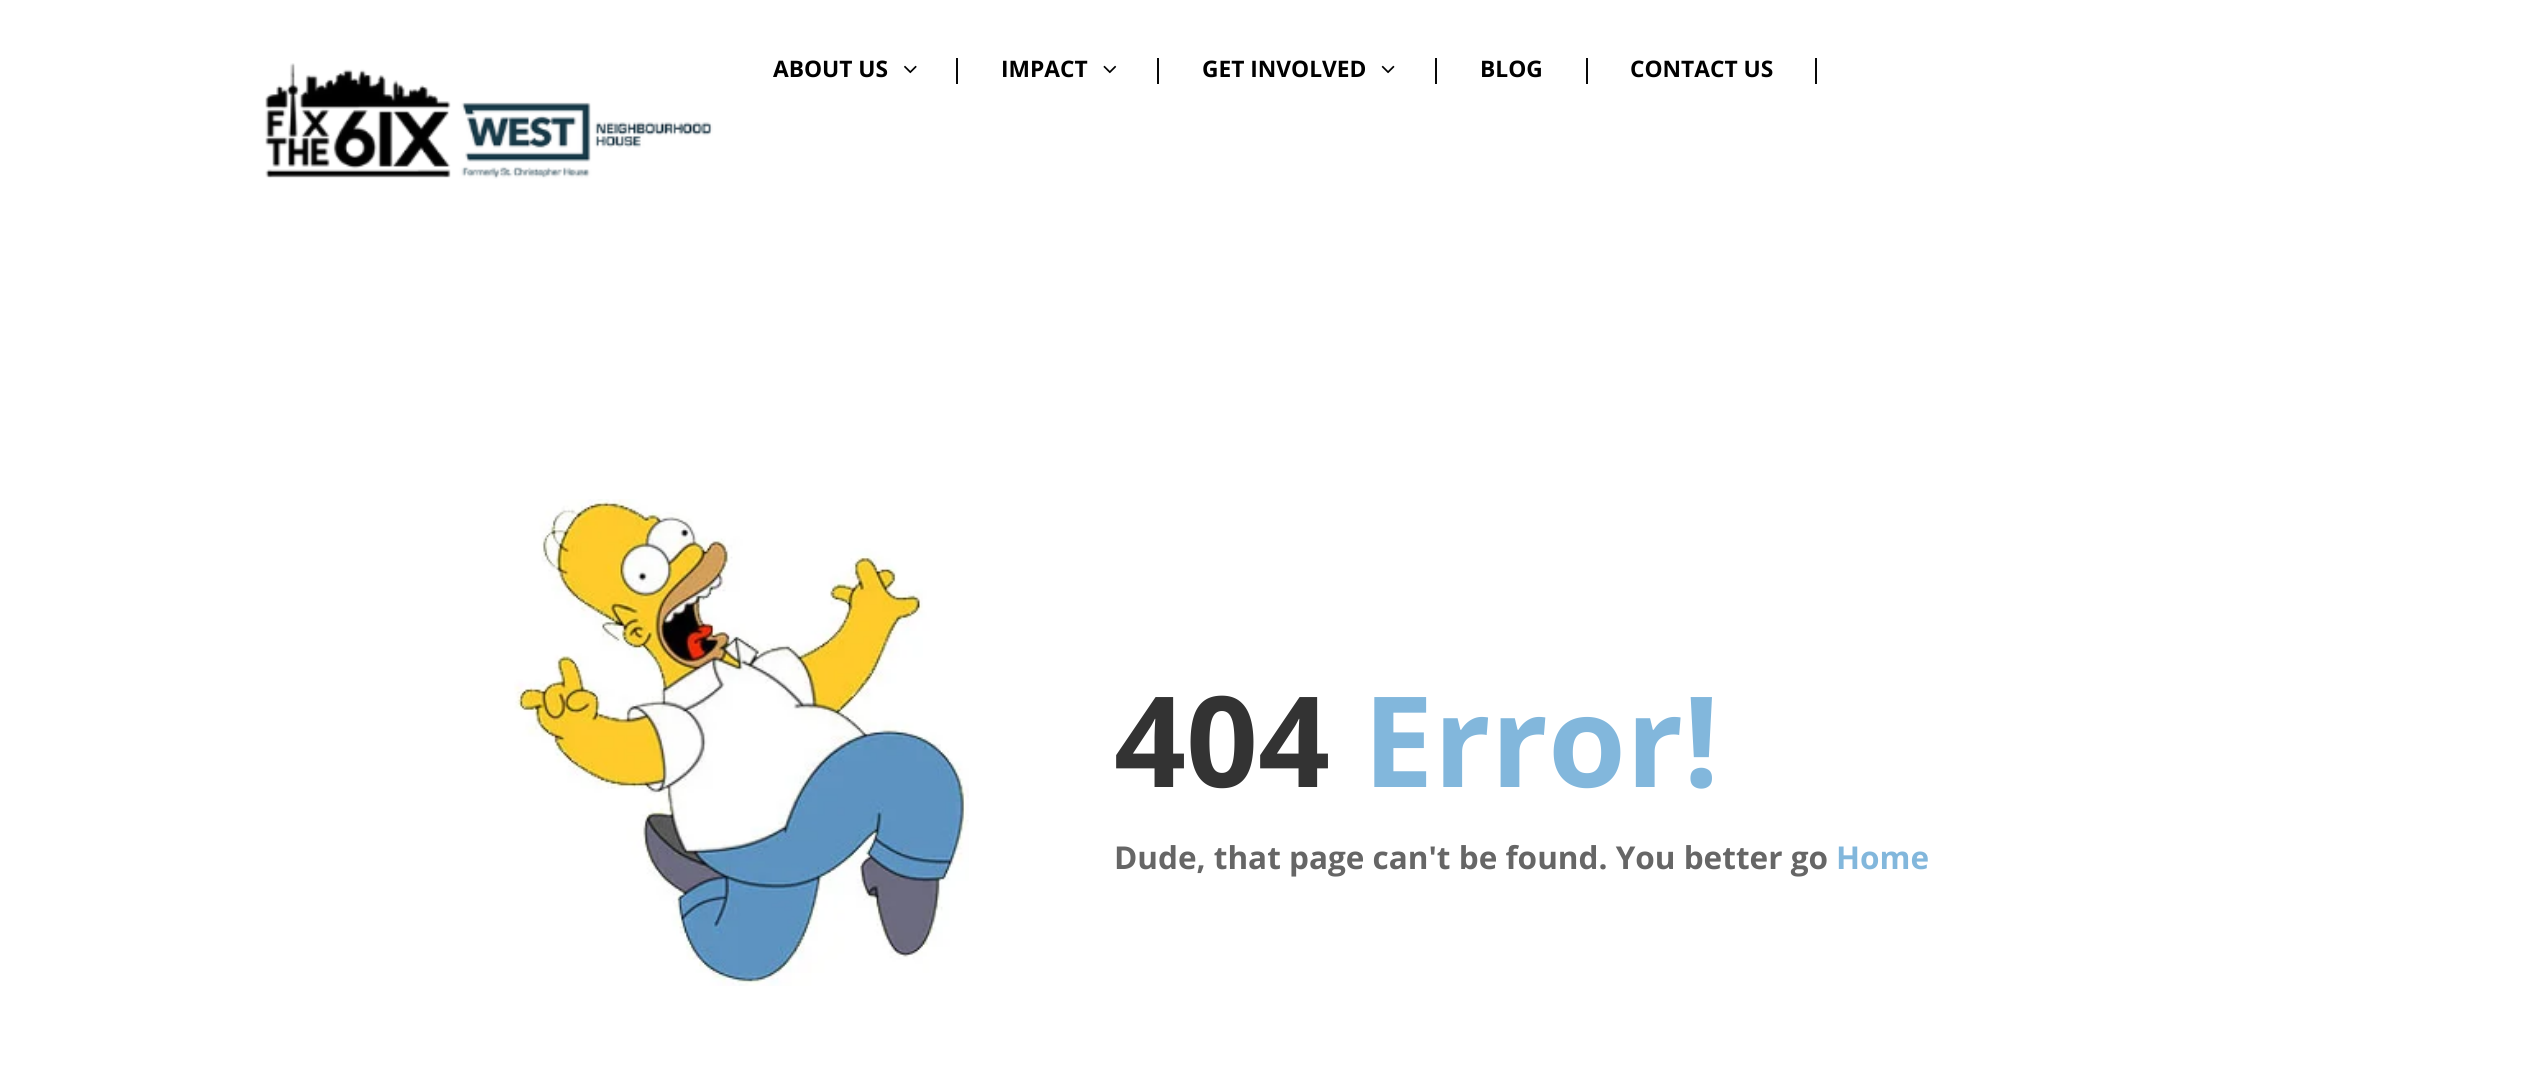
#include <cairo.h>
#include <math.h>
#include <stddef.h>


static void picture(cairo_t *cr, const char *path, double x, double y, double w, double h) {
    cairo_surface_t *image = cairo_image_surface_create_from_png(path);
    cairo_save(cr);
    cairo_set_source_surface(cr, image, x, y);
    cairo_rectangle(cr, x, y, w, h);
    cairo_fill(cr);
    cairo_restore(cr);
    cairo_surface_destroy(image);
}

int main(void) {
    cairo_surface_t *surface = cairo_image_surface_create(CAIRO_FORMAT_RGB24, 2525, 1065);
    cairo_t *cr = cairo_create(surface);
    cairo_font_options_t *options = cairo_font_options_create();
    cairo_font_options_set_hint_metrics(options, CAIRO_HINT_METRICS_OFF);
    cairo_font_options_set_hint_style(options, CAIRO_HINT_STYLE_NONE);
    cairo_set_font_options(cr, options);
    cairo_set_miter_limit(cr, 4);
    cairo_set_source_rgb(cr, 1, 1, 1);
    cairo_paint(cr);
    picture(cr, "img1.png", 265, 63, 448, 116);
    cairo_select_font_face(cr, "Open Sans", CAIRO_FONT_SLANT_NORMAL, CAIRO_FONT_WEIGHT_BOLD);
    cairo_set_font_size(cr, 22.75);
    cairo_set_source_rgb(cr, 0, 0, 0);
    cairo_move_to(cr, 773, 77);
    cairo_show_text(cr, "ABOUT US");
    cairo_set_source_rgb(cr, 0.039, 0.039, 0.039);
    cairo_rectangle(cr, 956, 58, 2, 26);
    cairo_fill(cr);
    picture(cr, "img2.png", 904, 65, 13, 9);
    cairo_set_source_rgb(cr, 0, 0, 0);
    cairo_move_to(cr, 1001, 77);
    cairo_show_text(cr, "IMPACT");
    cairo_set_source_rgb(cr, 0.039, 0.039, 0.039);
    cairo_rectangle(cr, 1157, 58, 2, 26);
    cairo_fill(cr);
    picture(cr, "img3.png", 1103, 65, 14, 9);
    cairo_set_source_rgb(cr, 0, 0, 0);
    cairo_move_to(cr, 1202, 77);
    cairo_show_text(cr, "GET INVOLVED");
    cairo_set_source_rgb(cr, 0.039, 0.039, 0.039);
    cairo_rectangle(cr, 1435, 58, 2, 26);
    cairo_fill(cr);
    picture(cr, "img4.png", 1381, 65, 14, 9);
    cairo_set_source_rgb(cr, 0, 0, 0);
    cairo_move_to(cr, 1480, 77);
    cairo_show_text(cr, "BLOG");
    cairo_set_source_rgb(cr, 0.039, 0.039, 0.039);
    cairo_rectangle(cr, 1586, 58, 2, 26);
    cairo_fill(cr);
    cairo_set_source_rgb(cr, 0, 0, 0);
    cairo_move_to(cr, 1630, 77);
    cairo_show_text(cr, "CONTACT US");
    cairo_set_source_rgb(cr, 0.039, 0.039, 0.039);
    cairo_rectangle(cr, 1815, 58, 2, 26);
    cairo_fill(cr);
    picture(cr, "img5.png", 514, 499, 455, 487);
    cairo_set_font_size(cr, 126);
    cairo_set_source_rgb(cr, 0.2, 0.2, 0.2);
    cairo_move_to(cr, 1114, 787);
    cairo_show_text(cr, "404");
    cairo_set_source_rgb(cr, 0.51, 0.718, 0.863);
    cairo_move_to(cr, 1363, 787);
    cairo_show_text(cr, "Error!");
    cairo_set_font_size(cr, 31.5);
    cairo_set_source_rgb(cr, 0.4, 0.4, 0.4);
    cairo_move_to(cr, 1114, 869);
    cairo_show_text(cr, "Dude, that page can't be found. You better go");
    cairo_set_source_rgb(cr, 0.51, 0.718, 0.863);
    cairo_move_to(cr, 1836, 869);
    cairo_show_text(cr, "Home");
    cairo_surface_write_to_png(surface, "page.png");
    cairo_font_options_destroy(options);
    cairo_destroy(cr);
    cairo_surface_destroy(surface);
    return 0;
}
